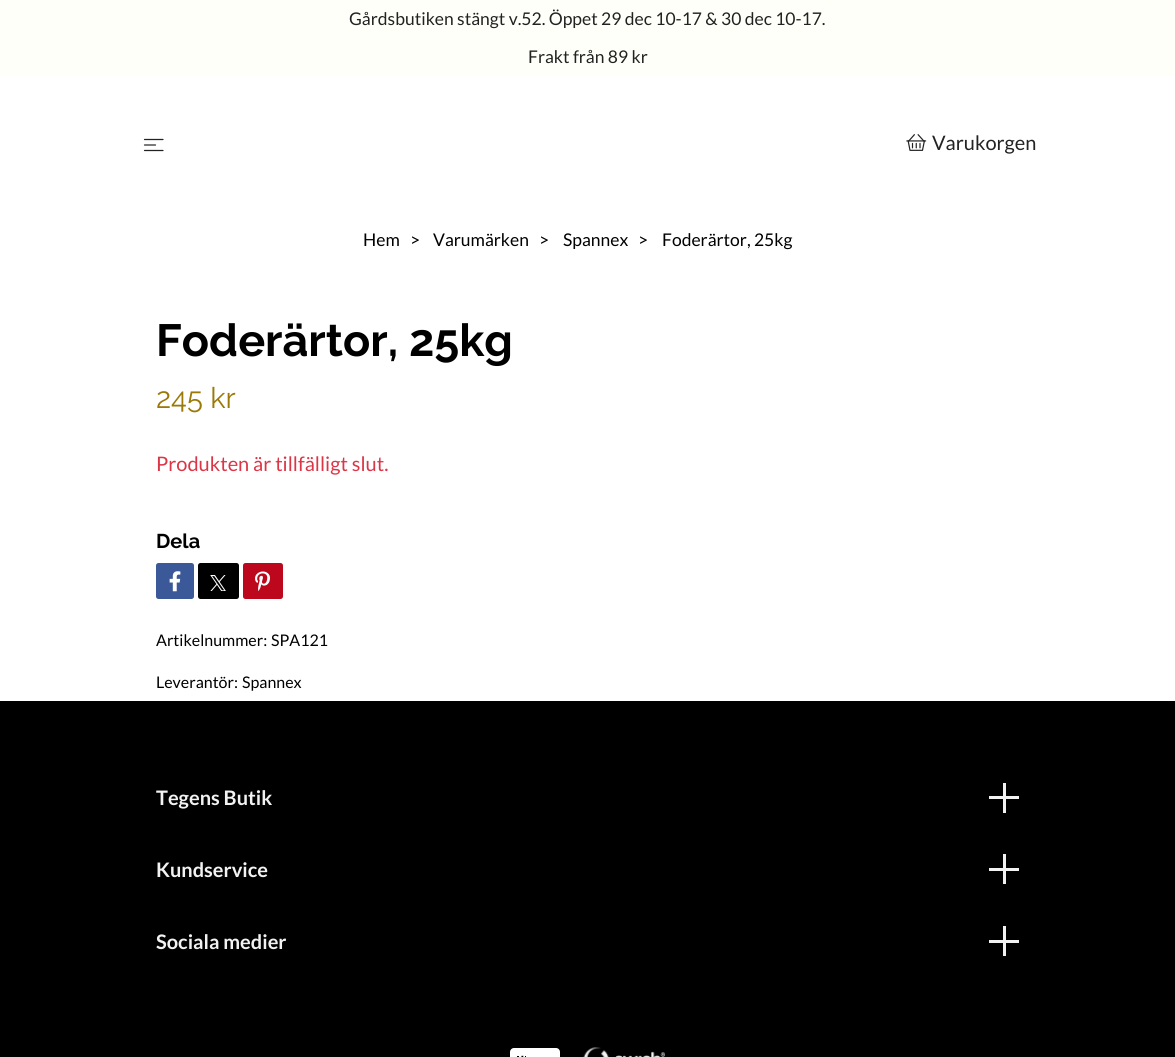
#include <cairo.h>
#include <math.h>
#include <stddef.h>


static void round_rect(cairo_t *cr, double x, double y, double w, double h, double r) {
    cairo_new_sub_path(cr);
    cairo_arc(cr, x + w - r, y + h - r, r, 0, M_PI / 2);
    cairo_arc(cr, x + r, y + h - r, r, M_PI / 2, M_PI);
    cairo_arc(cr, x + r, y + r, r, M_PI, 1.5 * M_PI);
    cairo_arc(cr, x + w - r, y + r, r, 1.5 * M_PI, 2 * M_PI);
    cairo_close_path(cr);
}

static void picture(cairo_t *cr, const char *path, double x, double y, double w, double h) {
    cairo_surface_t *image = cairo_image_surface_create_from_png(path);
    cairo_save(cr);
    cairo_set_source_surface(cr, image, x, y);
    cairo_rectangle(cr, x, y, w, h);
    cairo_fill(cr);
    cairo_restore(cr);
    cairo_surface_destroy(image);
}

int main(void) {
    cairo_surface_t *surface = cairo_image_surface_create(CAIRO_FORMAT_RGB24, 1175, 1057);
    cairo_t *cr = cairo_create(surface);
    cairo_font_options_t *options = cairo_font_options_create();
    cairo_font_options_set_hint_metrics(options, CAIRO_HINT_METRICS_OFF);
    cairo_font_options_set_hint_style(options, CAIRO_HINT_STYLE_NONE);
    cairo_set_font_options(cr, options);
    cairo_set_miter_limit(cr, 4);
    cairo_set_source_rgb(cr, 1, 1, 1);
    cairo_paint(cr);
    cairo_set_source_rgb(cr, 1, 1, 0.98);
    cairo_rectangle(cr, 0, 0, 1175, 76);
    cairo_fill(cr);
    cairo_select_font_face(cr, "Lato", CAIRO_FONT_SLANT_NORMAL, CAIRO_FONT_WEIGHT_NORMAL);
    cairo_set_font_size(cr, 17.5);
    cairo_set_source_rgb(cr, 0.133, 0.133, 0.133);
    cairo_move_to(cr, 349, 25);
    cairo_show_text(cr, "Gårdsbutiken stängt v.52. Öppet 29 dec 10-17 & 30 dec 10-17.");
    cairo_move_to(cr, 528, 63);
    cairo_show_text(cr, "Frakt från 89 kr");
    cairo_new_path(cr);
    cairo_move_to(cr, 144.5, 139.5);
    cairo_line_to(cr, 163, 139.5);
    cairo_move_to(cr, 144.5, 145);
    cairo_line_to(cr, 155.5, 145);
    cairo_move_to(cr, 144.5, 150.5);
    cairo_line_to(cr, 163, 150.5);
    cairo_set_line_width(cr, 1.2);
    cairo_set_line_cap(cr, CAIRO_LINE_CAP_ROUND);
    cairo_set_line_join(cr, CAIRO_LINE_JOIN_ROUND);
    cairo_stroke(cr);
    picture(cr, "img1.png", 906, 134, 21, 17);
    cairo_set_font_size(cr, 20);
    cairo_move_to(cr, 932, 150);
    cairo_show_text(cr, "Varukorgen");
    cairo_set_font_size(cr, 17.5);
    cairo_set_source_rgb(cr, 0, 0, 0);
    cairo_move_to(cr, 363, 246);
    cairo_show_text(cr, "Hem");
    cairo_move_to(cr, 410, 246);
    cairo_show_text(cr, ">");
    cairo_move_to(cr, 433, 246);
    cairo_show_text(cr, "Varumärken");
    cairo_move_to(cr, 539, 246);
    cairo_show_text(cr, ">");
    cairo_move_to(cr, 563, 246);
    cairo_show_text(cr, "Spannex");
    cairo_move_to(cr, 638, 246);
    cairo_show_text(cr, ">");
    cairo_move_to(cr, 662, 246);
    cairo_show_text(cr, "Foderärtor, 25kg");
    cairo_select_font_face(cr, "Raleway", CAIRO_FONT_SLANT_NORMAL, CAIRO_FONT_WEIGHT_BOLD);
    cairo_set_font_size(cr, 45);
    cairo_move_to(cr, 156, 356);
    cairo_show_text(cr, "Foderärtor, 25kg");
    cairo_select_font_face(cr, "Raleway", CAIRO_FONT_SLANT_NORMAL, CAIRO_FONT_WEIGHT_NORMAL);
    cairo_set_font_size(cr, 29);
    cairo_set_source_rgb(cr, 0.604, 0.475, 0.024);
    cairo_move_to(cr, 156, 408);
    cairo_show_text(cr, "245 kr");
    cairo_select_font_face(cr, "Lato", CAIRO_FONT_SLANT_NORMAL, CAIRO_FONT_WEIGHT_NORMAL);
    cairo_set_font_size(cr, 20);
    cairo_set_source_rgb(cr, 0.863, 0.208, 0.271);
    cairo_move_to(cr, 156, 471);
    cairo_show_text(cr, "Produkten är tillfälligt slut.");
    cairo_select_font_face(cr, "Raleway", CAIRO_FONT_SLANT_NORMAL, CAIRO_FONT_WEIGHT_BOLD);
    cairo_set_source_rgb(cr, 0, 0, 0);
    cairo_move_to(cr, 156, 548);
    cairo_show_text(cr, "Dela");
    cairo_set_source_rgb(cr, 0.231, 0.349, 0.596);
    round_rect(cr, 156, 563, 38, 36, 2.5);
    cairo_fill(cr);
    picture(cr, "img2.png", 169, 571, 12, 21);
    cairo_set_source_rgb(cr, 0, 0, 0);
    round_rect(cr, 198, 563, 41, 36, 2.5);
    cairo_fill(cr);
    cairo_set_source_rgb(cr, 0.741, 0.031, 0.11);
    round_rect(cr, 243, 563, 40, 36, 2.5);
    cairo_fill(cr);
    picture(cr, "img3.png", 255, 571, 15, 20);
    picture(cr, "img4.png", 210, 575, 16, 16);
    cairo_select_font_face(cr, "Lato", CAIRO_FONT_SLANT_NORMAL, CAIRO_FONT_WEIGHT_NORMAL);
    cairo_set_font_size(cr, 16);
    cairo_set_source_rgb(cr, 0, 0, 0);
    cairo_move_to(cr, 156, 646);
    cairo_show_text(cr, "Artikelnummer:");
    cairo_move_to(cr, 271, 646);
    cairo_show_text(cr, "SPA121");
    cairo_move_to(cr, 156, 688);
    cairo_show_text(cr, "Leverantör:");
    cairo_move_to(cr, 242, 688);
    cairo_show_text(cr, "Spannex");
    cairo_rectangle(cr, 0, 701, 1175, 356);
    cairo_fill(cr);
    cairo_select_font_face(cr, "Lato", CAIRO_FONT_SLANT_NORMAL, CAIRO_FONT_WEIGHT_BOLD);
    cairo_set_font_size(cr, 20);
    cairo_set_source_rgb(cr, 0.949, 0.949, 0.949);
    cairo_move_to(cr, 156, 805);
    cairo_show_text(cr, "Tegens Butik");
    cairo_rectangle(cr, 1003, 783, 3, 30);
    cairo_fill(cr);
    cairo_rectangle(cr, 989, 796, 30, 3);
    cairo_fill(cr);
    cairo_move_to(cr, 156, 877);
    cairo_show_text(cr, "Kundservice");
    cairo_rectangle(cr, 1003, 854, 3, 30);
    cairo_fill(cr);
    cairo_rectangle(cr, 989, 868, 30, 3);
    cairo_fill(cr);
    cairo_move_to(cr, 156, 949);
    cairo_show_text(cr, "Sociala medier");
    cairo_rectangle(cr, 1003, 926, 3, 30);
    cairo_fill(cr);
    cairo_rectangle(cr, 989, 940, 30, 3);
    cairo_fill(cr);
    picture(cr, "img5.png", 510, 1048, 50, 9);
    picture(cr, "img6.png", 583, 1047, 82, 10);
    cairo_surface_write_to_png(surface, "page.png");
    cairo_font_options_destroy(options);
    cairo_destroy(cr);
    cairo_surface_destroy(surface);
    return 0;
}
